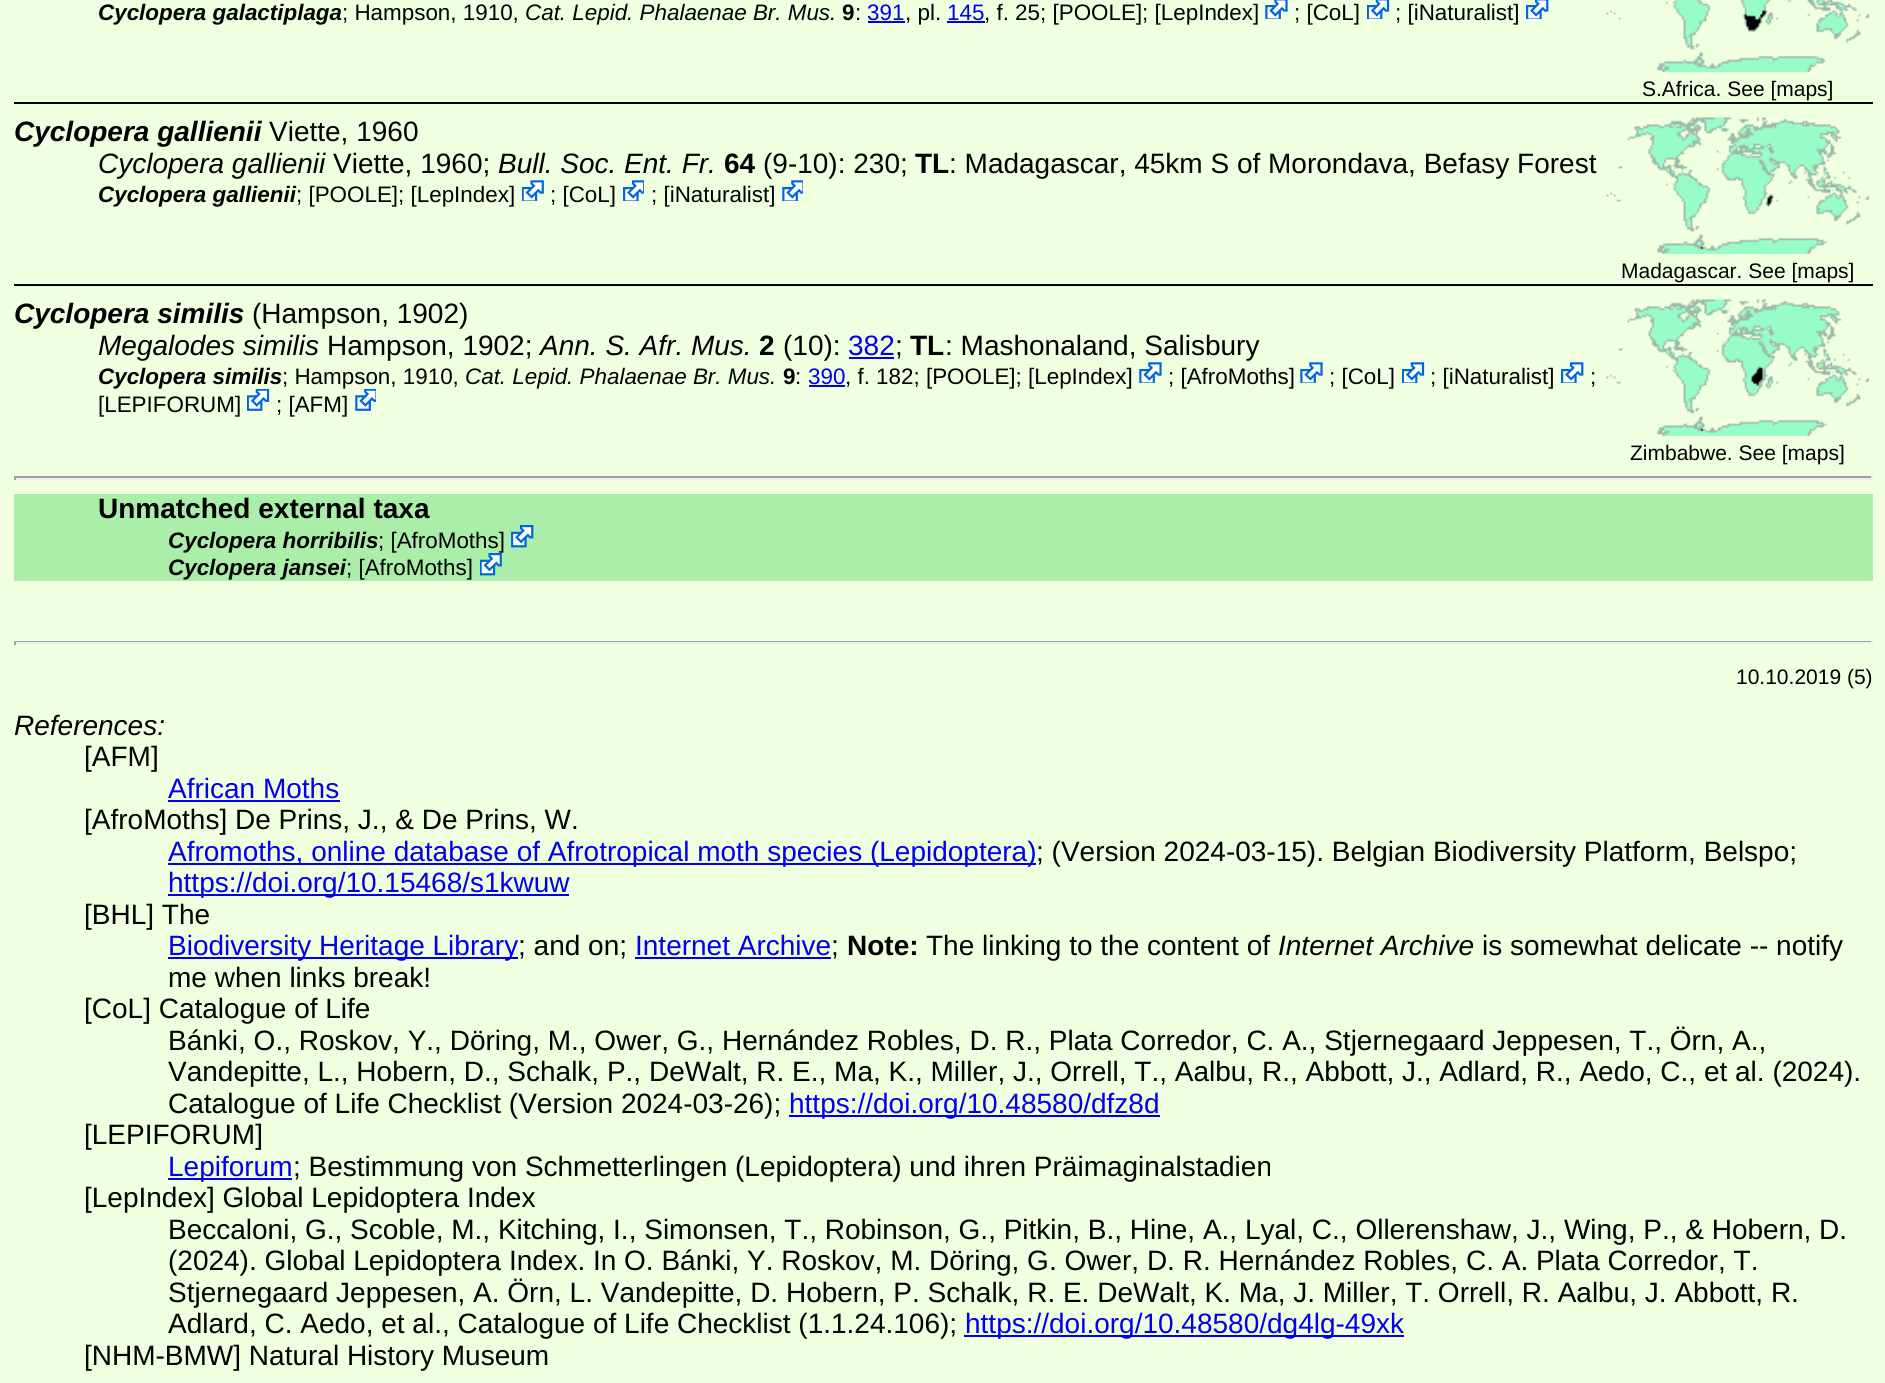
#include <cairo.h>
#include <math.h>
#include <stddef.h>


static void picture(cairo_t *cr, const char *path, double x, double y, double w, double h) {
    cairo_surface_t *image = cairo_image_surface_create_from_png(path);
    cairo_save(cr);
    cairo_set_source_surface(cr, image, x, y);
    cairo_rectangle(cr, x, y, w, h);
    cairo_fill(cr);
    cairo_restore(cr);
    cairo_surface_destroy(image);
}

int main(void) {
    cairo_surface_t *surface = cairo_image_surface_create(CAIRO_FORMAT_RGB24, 1885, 1383);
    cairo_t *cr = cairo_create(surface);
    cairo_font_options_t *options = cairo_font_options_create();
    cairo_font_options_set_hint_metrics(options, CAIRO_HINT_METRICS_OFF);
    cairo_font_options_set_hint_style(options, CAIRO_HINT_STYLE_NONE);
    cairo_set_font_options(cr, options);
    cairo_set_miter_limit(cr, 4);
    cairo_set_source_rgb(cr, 0.941, 1, 0.878);
    cairo_paint(cr);
    cairo_select_font_face(cr, "Liberation Sans", CAIRO_FONT_SLANT_ITALIC, CAIRO_FONT_WEIGHT_BOLD);
    cairo_set_font_size(cr, 22.4);
    cairo_set_source_rgb(cr, 0, 0, 0);
    cairo_move_to(cr, 98, 20);
    cairo_show_text(cr, "Cyclopera galactiplaga");
    cairo_select_font_face(cr, "Liberation Sans", CAIRO_FONT_SLANT_NORMAL, CAIRO_FONT_WEIGHT_NORMAL);
    cairo_move_to(cr, 342, 20);
    cairo_show_text(cr, "; Hampson, 1910,");
    cairo_select_font_face(cr, "Liberation Sans", CAIRO_FONT_SLANT_ITALIC, CAIRO_FONT_WEIGHT_NORMAL);
    cairo_move_to(cr, 525, 20);
    cairo_show_text(cr, "Cat. Lepid. Phalaenae Br. Mus.");
    cairo_select_font_face(cr, "Liberation Sans", CAIRO_FONT_SLANT_NORMAL, CAIRO_FONT_WEIGHT_BOLD);
    cairo_move_to(cr, 842, 20);
    cairo_show_text(cr, "9");
    cairo_select_font_face(cr, "Liberation Sans", CAIRO_FONT_SLANT_NORMAL, CAIRO_FONT_WEIGHT_NORMAL);
    cairo_move_to(cr, 855, 20);
    cairo_show_text(cr, ":");
    cairo_set_source_rgb(cr, 0, 0, 0.933);
    cairo_move_to(cr, 867, 20);
    cairo_show_text(cr, "391");
    cairo_rectangle(cr, 868, 21, 37, 2);
    cairo_fill(cr);
    cairo_set_source_rgb(cr, 0, 0, 0);
    cairo_move_to(cr, 905, 20);
    cairo_show_text(cr, ", pl.");
    cairo_set_source_rgb(cr, 0, 0, 0.933);
    cairo_move_to(cr, 947, 20);
    cairo_show_text(cr, "145");
    cairo_rectangle(cr, 947, 21, 38, 2);
    cairo_fill(cr);
    cairo_set_source_rgb(cr, 0, 0, 0);
    cairo_move_to(cr, 984, 20);
    cairo_show_text(cr, ", f. 25; [POOLE]; [LepIndex]");
    picture(cr, "img1.png", 1265, 0, 23, 19);
    cairo_move_to(cr, 1294, 20);
    cairo_show_text(cr, "; [CoL]");
    picture(cr, "img2.png", 1367, 0, 23, 19);
    cairo_move_to(cr, 1395, 20);
    cairo_show_text(cr, "; [iNaturalist]");
    picture(cr, "img3.png", 1526, 0, 23, 19);
    picture(cr, "img4.png", 1606, 0, 263, 72);
    cairo_set_font_size(cr, 21);
    cairo_move_to(cr, 1642, 96);
    cairo_show_text(cr, "S.Africa. See [maps]");
    cairo_rectangle(cr, 14, 102, 1859, 2);
    cairo_fill(cr);
    cairo_select_font_face(cr, "Liberation Sans", CAIRO_FONT_SLANT_ITALIC, CAIRO_FONT_WEIGHT_BOLD);
    cairo_set_font_size(cr, 28);
    cairo_move_to(cr, 14, 141);
    cairo_show_text(cr, "Cyclopera gallienii");
    cairo_select_font_face(cr, "Liberation Sans", CAIRO_FONT_SLANT_NORMAL, CAIRO_FONT_WEIGHT_NORMAL);
    cairo_move_to(cr, 269, 141);
    cairo_show_text(cr, "Viette, 1960");
    cairo_select_font_face(cr, "Liberation Sans", CAIRO_FONT_SLANT_ITALIC, CAIRO_FONT_WEIGHT_NORMAL);
    cairo_move_to(cr, 98, 173);
    cairo_show_text(cr, "Cyclopera gallienii");
    cairo_select_font_face(cr, "Liberation Sans", CAIRO_FONT_SLANT_NORMAL, CAIRO_FONT_WEIGHT_NORMAL);
    cairo_move_to(cr, 333, 173);
    cairo_show_text(cr, "Viette, 1960;");
    cairo_select_font_face(cr, "Liberation Sans", CAIRO_FONT_SLANT_ITALIC, CAIRO_FONT_WEIGHT_NORMAL);
    cairo_move_to(cr, 498, 173);
    cairo_show_text(cr, "Bull. Soc. Ent. Fr.");
    cairo_select_font_face(cr, "Liberation Sans", CAIRO_FONT_SLANT_NORMAL, CAIRO_FONT_WEIGHT_BOLD);
    cairo_move_to(cr, 724, 173);
    cairo_show_text(cr, "64");
    cairo_select_font_face(cr, "Liberation Sans", CAIRO_FONT_SLANT_NORMAL, CAIRO_FONT_WEIGHT_NORMAL);
    cairo_move_to(cr, 763, 173);
    cairo_show_text(cr, "(9-10): 230;");
    cairo_select_font_face(cr, "Liberation Sans", CAIRO_FONT_SLANT_NORMAL, CAIRO_FONT_WEIGHT_BOLD);
    cairo_move_to(cr, 915, 173);
    cairo_show_text(cr, "TL");
    cairo_select_font_face(cr, "Liberation Sans", CAIRO_FONT_SLANT_NORMAL, CAIRO_FONT_WEIGHT_NORMAL);
    cairo_move_to(cr, 949, 173);
    cairo_show_text(cr, ": Madagascar, 45km S of Morondava, Befasy Forest");
    cairo_select_font_face(cr, "Liberation Sans", CAIRO_FONT_SLANT_ITALIC, CAIRO_FONT_WEIGHT_BOLD);
    cairo_set_font_size(cr, 22.4);
    cairo_move_to(cr, 98, 202);
    cairo_show_text(cr, "Cyclopera gallienii");
    cairo_select_font_face(cr, "Liberation Sans", CAIRO_FONT_SLANT_NORMAL, CAIRO_FONT_WEIGHT_NORMAL);
    cairo_move_to(cr, 296, 202);
    cairo_show_text(cr, "; [POOLE]; [LepIndex]");
    picture(cr, "img5.png", 522, 180, 22, 21);
    cairo_move_to(cr, 550, 202);
    cairo_show_text(cr, "; [CoL]");
    picture(cr, "img6.png", 623, 180, 21, 21);
    cairo_move_to(cr, 651, 202);
    cairo_show_text(cr, "; [iNaturalist]");
    picture(cr, "img7.png", 782, 180, 21, 21);
    picture(cr, "img8.png", 1606, 117, 263, 137);
    cairo_set_font_size(cr, 21);
    cairo_move_to(cr, 1621, 278);
    cairo_show_text(cr, "Madagascar. See [maps]");
    cairo_rectangle(cr, 14, 284, 1859, 2);
    cairo_fill(cr);
    cairo_select_font_face(cr, "Liberation Sans", CAIRO_FONT_SLANT_ITALIC, CAIRO_FONT_WEIGHT_BOLD);
    cairo_set_font_size(cr, 28);
    cairo_move_to(cr, 14, 323);
    cairo_show_text(cr, "Cyclopera similis");
    cairo_select_font_face(cr, "Liberation Sans", CAIRO_FONT_SLANT_NORMAL, CAIRO_FONT_WEIGHT_NORMAL);
    cairo_move_to(cr, 252, 323);
    cairo_show_text(cr, "(Hampson, 1902)");
    cairo_select_font_face(cr, "Liberation Sans", CAIRO_FONT_SLANT_ITALIC, CAIRO_FONT_WEIGHT_NORMAL);
    cairo_move_to(cr, 98, 355);
    cairo_show_text(cr, "Megalodes similis");
    cairo_select_font_face(cr, "Liberation Sans", CAIRO_FONT_SLANT_NORMAL, CAIRO_FONT_WEIGHT_NORMAL);
    cairo_move_to(cr, 327, 355);
    cairo_show_text(cr, "Hampson, 1902;");
    cairo_select_font_face(cr, "Liberation Sans", CAIRO_FONT_SLANT_ITALIC, CAIRO_FONT_WEIGHT_NORMAL);
    cairo_move_to(cr, 540, 355);
    cairo_show_text(cr, "Ann. S. Afr. Mus.");
    cairo_select_font_face(cr, "Liberation Sans", CAIRO_FONT_SLANT_NORMAL, CAIRO_FONT_WEIGHT_BOLD);
    cairo_move_to(cr, 759, 355);
    cairo_show_text(cr, "2");
    cairo_select_font_face(cr, "Liberation Sans", CAIRO_FONT_SLANT_NORMAL, CAIRO_FONT_WEIGHT_NORMAL);
    cairo_move_to(cr, 783, 355);
    cairo_show_text(cr, "(10):");
    cairo_set_source_rgb(cr, 0, 0, 0.933);
    cairo_move_to(cr, 848, 355);
    cairo_show_text(cr, "382");
    cairo_rectangle(cr, 849, 357, 45, 2);
    cairo_fill(cr);
    cairo_set_source_rgb(cr, 0, 0, 0);
    cairo_move_to(cr, 895, 355);
    cairo_show_text(cr, ";");
    cairo_select_font_face(cr, "Liberation Sans", CAIRO_FONT_SLANT_NORMAL, CAIRO_FONT_WEIGHT_BOLD);
    cairo_move_to(cr, 910, 355);
    cairo_show_text(cr, "TL");
    cairo_select_font_face(cr, "Liberation Sans", CAIRO_FONT_SLANT_NORMAL, CAIRO_FONT_WEIGHT_NORMAL);
    cairo_move_to(cr, 945, 355);
    cairo_show_text(cr, ": Mashonaland, Salisbury");
    cairo_select_font_face(cr, "Liberation Sans", CAIRO_FONT_SLANT_ITALIC, CAIRO_FONT_WEIGHT_BOLD);
    cairo_set_font_size(cr, 22.4);
    cairo_move_to(cr, 98, 384);
    cairo_show_text(cr, "Cyclopera similis");
    cairo_select_font_face(cr, "Liberation Sans", CAIRO_FONT_SLANT_NORMAL, CAIRO_FONT_WEIGHT_NORMAL);
    cairo_move_to(cr, 282, 384);
    cairo_show_text(cr, "; Hampson, 1910,");
    cairo_select_font_face(cr, "Liberation Sans", CAIRO_FONT_SLANT_ITALIC, CAIRO_FONT_WEIGHT_NORMAL);
    cairo_move_to(cr, 465, 384);
    cairo_show_text(cr, "Cat. Lepid. Phalaenae Br. Mus.");
    cairo_select_font_face(cr, "Liberation Sans", CAIRO_FONT_SLANT_NORMAL, CAIRO_FONT_WEIGHT_BOLD);
    cairo_move_to(cr, 783, 384);
    cairo_show_text(cr, "9");
    cairo_select_font_face(cr, "Liberation Sans", CAIRO_FONT_SLANT_NORMAL, CAIRO_FONT_WEIGHT_NORMAL);
    cairo_move_to(cr, 795, 384);
    cairo_show_text(cr, ":");
    cairo_set_source_rgb(cr, 0, 0, 0.933);
    cairo_move_to(cr, 808, 384);
    cairo_show_text(cr, "390");
    cairo_rectangle(cr, 809, 385, 36, 2);
    cairo_fill(cr);
    cairo_set_source_rgb(cr, 0, 0, 0);
    cairo_move_to(cr, 845, 384);
    cairo_show_text(cr, ", f. 182; [POOLE]; [LepIndex]");
    picture(cr, "img9.png", 1139, 362, 23, 21);
    cairo_move_to(cr, 1168, 384);
    cairo_show_text(cr, "; [AfroMoths]");
    picture(cr, "img9.png", 1300, 362, 23, 21);
    cairo_move_to(cr, 1329, 384);
    cairo_show_text(cr, "; [CoL]");
    picture(cr, "img10.png", 1402, 362, 23, 21);
    cairo_move_to(cr, 1430, 384);
    cairo_show_text(cr, "; [iNaturalist]");
    picture(cr, "img11.png", 1561, 362, 23, 21);
    cairo_move_to(cr, 1590, 384);
    cairo_show_text(cr, ";");
    cairo_move_to(cr, 98, 412);
    cairo_show_text(cr, "[LEPIFORUM]");
    picture(cr, "img12.png", 247, 389, 23, 22);
    cairo_move_to(cr, 276, 412);
    cairo_show_text(cr, "; [AFM]");
    picture(cr, "img13.png", 355, 389, 21, 22);
    picture(cr, "img14.png", 1606, 299, 263, 137);
    cairo_set_font_size(cr, 21);
    cairo_move_to(cr, 1630, 460);
    cairo_show_text(cr, "Zimbabwe. See [maps]");
    cairo_set_source_rgb(cr, 0.624, 0.624, 0.624);
    cairo_rectangle(cr, 14, 476, 1859, 2);
    cairo_fill(cr);
    cairo_set_source_rgb(cr, 0.933, 0.933, 0.933);
    cairo_rectangle(cr, 1871, 476, 2, 4);
    cairo_fill(cr);
    cairo_rectangle(cr, 14, 478, 1859, 2);
    cairo_fill(cr);
    cairo_set_source_rgb(cr, 0.624, 0.624, 0.624);
    cairo_rectangle(cr, 14, 476, 2, 4);
    cairo_fill(cr);
    cairo_set_source_rgb(cr, 0.667, 0.933, 0.667);
    cairo_rectangle(cr, 14, 494, 1859, 87);
    cairo_fill(cr);
    cairo_select_font_face(cr, "Liberation Sans", CAIRO_FONT_SLANT_NORMAL, CAIRO_FONT_WEIGHT_BOLD);
    cairo_set_font_size(cr, 28);
    cairo_set_source_rgb(cr, 0, 0, 0);
    cairo_move_to(cr, 98, 518);
    cairo_show_text(cr, "Unmatched external taxa");
    cairo_select_font_face(cr, "Liberation Sans", CAIRO_FONT_SLANT_ITALIC, CAIRO_FONT_WEIGHT_BOLD);
    cairo_set_font_size(cr, 22.4);
    cairo_move_to(cr, 168, 548);
    cairo_show_text(cr, "Cyclopera horribilis");
    cairo_select_font_face(cr, "Liberation Sans", CAIRO_FONT_SLANT_NORMAL, CAIRO_FONT_WEIGHT_NORMAL);
    cairo_move_to(cr, 378, 548);
    cairo_show_text(cr, "; [AfroMoths]");
    picture(cr, "img15.png", 511, 525, 23, 23);
    cairo_select_font_face(cr, "Liberation Sans", CAIRO_FONT_SLANT_ITALIC, CAIRO_FONT_WEIGHT_BOLD);
    cairo_move_to(cr, 168, 575);
    cairo_show_text(cr, "Cyclopera jansei");
    cairo_select_font_face(cr, "Liberation Sans", CAIRO_FONT_SLANT_NORMAL, CAIRO_FONT_WEIGHT_NORMAL);
    cairo_move_to(cr, 346, 575);
    cairo_show_text(cr, "; [AfroMoths]");
    picture(cr, "img16.png", 480, 553, 22, 23);
    cairo_set_source_rgb(cr, 0.624, 0.624, 0.624);
    cairo_rectangle(cr, 14, 641, 1859, 1);
    cairo_fill(cr);
    cairo_set_source_rgb(cr, 0.933, 0.933, 0.933);
    cairo_rectangle(cr, 1871, 641, 2, 4);
    cairo_fill(cr);
    cairo_rectangle(cr, 14, 642, 1859, 2);
    cairo_fill(cr);
    cairo_set_source_rgb(cr, 0.624, 0.624, 0.624);
    cairo_rectangle(cr, 14, 641, 2, 4);
    cairo_fill(cr);
    cairo_set_font_size(cr, 21);
    cairo_set_source_rgb(cr, 0, 0, 0);
    cairo_move_to(cr, 1736, 684);
    cairo_show_text(cr, "10.10.2019 (5)");
    cairo_select_font_face(cr, "Liberation Sans", CAIRO_FONT_SLANT_ITALIC, CAIRO_FONT_WEIGHT_NORMAL);
    cairo_set_font_size(cr, 28);
    cairo_move_to(cr, 14, 735);
    cairo_show_text(cr, "References:");
    cairo_select_font_face(cr, "Liberation Sans", CAIRO_FONT_SLANT_NORMAL, CAIRO_FONT_WEIGHT_NORMAL);
    cairo_move_to(cr, 84, 766);
    cairo_show_text(cr, "[AFM]");
    cairo_set_source_rgb(cr, 0, 0, 0.933);
    cairo_move_to(cr, 168, 798);
    cairo_show_text(cr, "African Moths");
    cairo_rectangle(cr, 168, 800, 172, 2);
    cairo_fill(cr);
    cairo_set_source_rgb(cr, 0, 0, 0);
    cairo_move_to(cr, 84, 829);
    cairo_show_text(cr, "[AfroMoths] De Prins, J., & De Prins, W.");
    cairo_set_source_rgb(cr, 0, 0, 0.933);
    cairo_rectangle(cr, 168, 863, 868, 2);
    cairo_fill(cr);
    cairo_move_to(cr, 168, 861);
    cairo_show_text(cr, "Afromoths, online database of Afrotropical moth species (Lepidoptera)");
    cairo_set_source_rgb(cr, 0, 0, 0);
    cairo_move_to(cr, 1036, 861);
    cairo_show_text(cr, "; (Version 2024-03-15). Belgian Biodiversity Platform, Belspo;");
    cairo_set_source_rgb(cr, 0, 0, 0.933);
    cairo_rectangle(cr, 168, 894, 401, 2);
    cairo_fill(cr);
    cairo_move_to(cr, 168, 892);
    cairo_show_text(cr, "https://doi.org/10.15468/s1kwuw");
    cairo_set_source_rgb(cr, 0, 0, 0);
    cairo_move_to(cr, 84, 924);
    cairo_show_text(cr, "[BHL] The");
    cairo_set_source_rgb(cr, 0, 0, 0.933);
    cairo_rectangle(cr, 168, 957, 350, 2);
    cairo_fill(cr);
    cairo_move_to(cr, 168, 955);
    cairo_show_text(cr, "Biodiversity Heritage Library");
    cairo_set_source_rgb(cr, 0, 0, 0);
    cairo_move_to(cr, 518, 955);
    cairo_show_text(cr, "; and on;");
    cairo_set_source_rgb(cr, 0, 0, 0.933);
    cairo_move_to(cr, 635, 955);
    cairo_show_text(cr, "Internet Archive");
    cairo_rectangle(cr, 635, 957, 196, 2);
    cairo_fill(cr);
    cairo_set_source_rgb(cr, 0, 0, 0);
    cairo_move_to(cr, 831, 955);
    cairo_show_text(cr, ";");
    cairo_select_font_face(cr, "Liberation Sans", CAIRO_FONT_SLANT_NORMAL, CAIRO_FONT_WEIGHT_BOLD);
    cairo_move_to(cr, 847, 955);
    cairo_show_text(cr, "Note:");
    cairo_select_font_face(cr, "Liberation Sans", CAIRO_FONT_SLANT_NORMAL, CAIRO_FONT_WEIGHT_NORMAL);
    cairo_move_to(cr, 926, 955);
    cairo_show_text(cr, "The linking to the content of");
    cairo_select_font_face(cr, "Liberation Sans", CAIRO_FONT_SLANT_ITALIC, CAIRO_FONT_WEIGHT_NORMAL);
    cairo_move_to(cr, 1278, 955);
    cairo_show_text(cr, "Internet Archive");
    cairo_select_font_face(cr, "Liberation Sans", CAIRO_FONT_SLANT_NORMAL, CAIRO_FONT_WEIGHT_NORMAL);
    cairo_move_to(cr, 1482, 955);
    cairo_show_text(cr, "is somewhat delicate -- notify");
    cairo_move_to(cr, 168, 987);
    cairo_show_text(cr, "me when links break!");
    cairo_move_to(cr, 84, 1018);
    cairo_show_text(cr, "[CoL] Catalogue of Life");
    cairo_move_to(cr, 168, 1050);
    cairo_show_text(cr, "Bánki, O., Roskov, Y., Döring, M., Ower, G., Hernández Robles, D. R., Plata Corredor, C. A., Stjernegaard Jeppesen, T., Örn, A.,");
    cairo_move_to(cr, 168, 1081);
    cairo_show_text(cr, "Vandepitte, L., Hobern, D., Schalk, P., DeWalt, R. E., Ma, K., Miller, J., Orrell, T., Aalbu, R., Abbott, J., Adlard, R., Aedo, C., et al. (2024).");
    cairo_move_to(cr, 168, 1113);
    cairo_show_text(cr, "Catalogue of Life Checklist (Version 2024-03-26);");
    cairo_set_source_rgb(cr, 0, 0, 0.933);
    cairo_rectangle(cr, 789, 1115, 371, 2);
    cairo_fill(cr);
    cairo_move_to(cr, 789, 1113);
    cairo_show_text(cr, "https://doi.org/10.48580/dfz8d");
    cairo_set_source_rgb(cr, 0, 0, 0);
    cairo_move_to(cr, 84, 1144);
    cairo_show_text(cr, "[LEPIFORUM]");
    cairo_set_source_rgb(cr, 0, 0, 0.933);
    cairo_rectangle(cr, 168, 1178, 124, 2);
    cairo_fill(cr);
    cairo_move_to(cr, 168, 1176);
    cairo_show_text(cr, "Lepiforum");
    cairo_set_source_rgb(cr, 0, 0, 0);
    cairo_move_to(cr, 293, 1176);
    cairo_show_text(cr, "; Bestimmung von Schmetterlingen (Lepidoptera) und ihren Präimaginalstadien");
    cairo_move_to(cr, 84, 1207);
    cairo_show_text(cr, "[LepIndex] Global Lepidoptera Index");
    cairo_move_to(cr, 168, 1239);
    cairo_show_text(cr, "Beccaloni, G., Scoble, M., Kitching, I., Simonsen, T., Robinson, G., Pitkin, B., Hine, A., Lyal, C., Ollerenshaw, J., Wing, P., & Hobern, D.");
    cairo_move_to(cr, 168, 1270);
    cairo_show_text(cr, "(2024). Global Lepidoptera Index. In O. Bánki, Y. Roskov, M. Döring, G. Ower, D. R. Hernández Robles, C. A. Plata Corredor, T.");
    cairo_move_to(cr, 168, 1302);
    cairo_show_text(cr, "Stjernegaard Jeppesen, A. Örn, L. Vandepitte, D. Hobern, P. Schalk, R. E. DeWalt, K. Ma, J. Miller, T. Orrell, R. Aalbu, J. Abbott, R.");
    cairo_move_to(cr, 168, 1333);
    cairo_show_text(cr, "Adlard, C. Aedo, et al., Catalogue of Life Checklist (1.1.24.106);");
    cairo_set_source_rgb(cr, 0, 0, 0.933);
    cairo_rectangle(cr, 964, 1335, 440, 2);
    cairo_fill(cr);
    cairo_move_to(cr, 965, 1333);
    cairo_show_text(cr, "https://doi.org/10.48580/dg4lg-49xk");
    cairo_set_source_rgb(cr, 0, 0, 0);
    cairo_move_to(cr, 84, 1365);
    cairo_show_text(cr, "[NHM-BMW] Natural History Museum");
    cairo_surface_write_to_png(surface, "page.png");
    cairo_font_options_destroy(options);
    cairo_destroy(cr);
    cairo_surface_destroy(surface);
    return 0;
}
